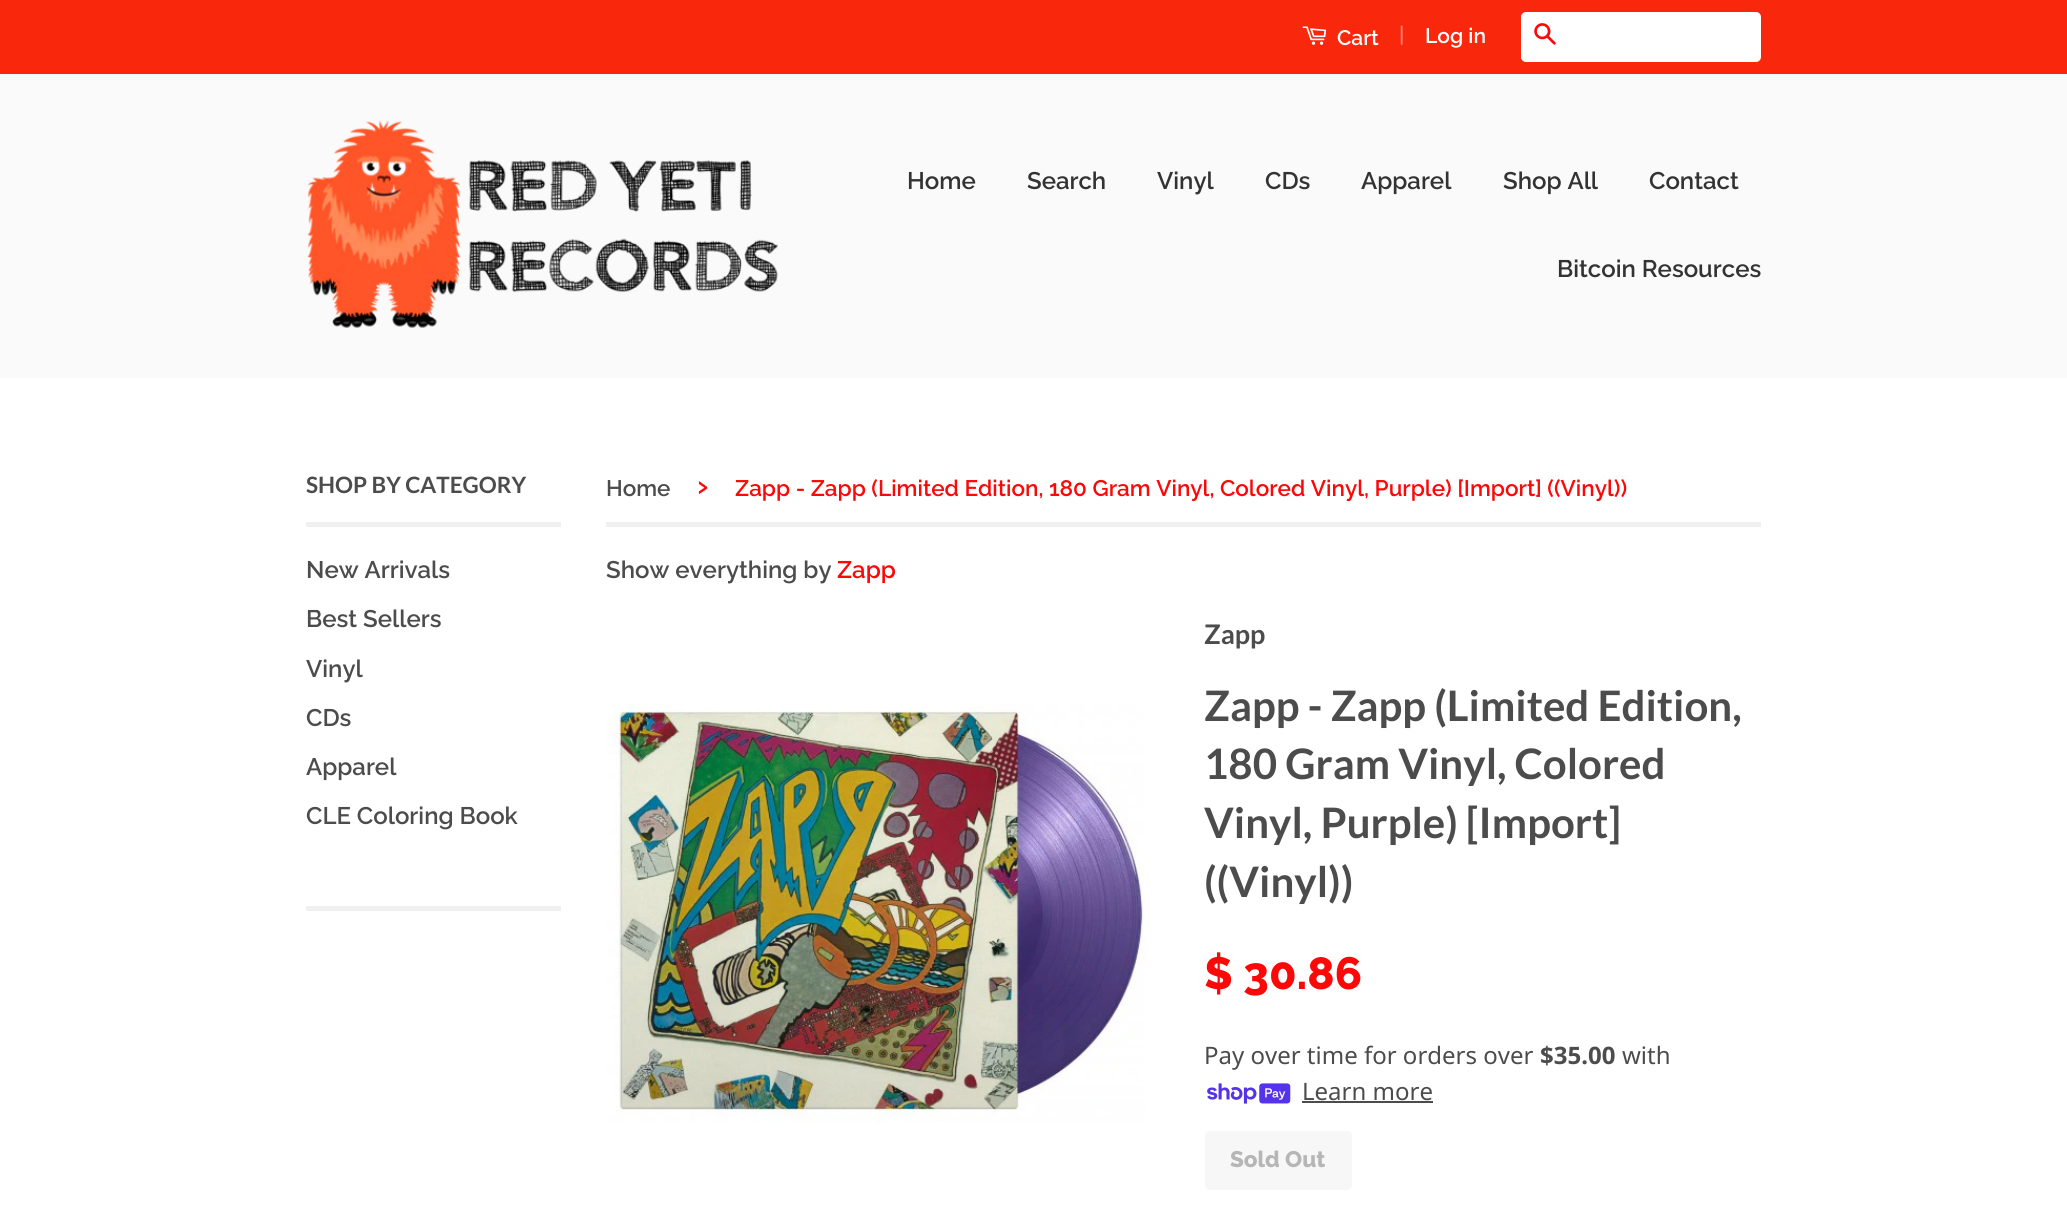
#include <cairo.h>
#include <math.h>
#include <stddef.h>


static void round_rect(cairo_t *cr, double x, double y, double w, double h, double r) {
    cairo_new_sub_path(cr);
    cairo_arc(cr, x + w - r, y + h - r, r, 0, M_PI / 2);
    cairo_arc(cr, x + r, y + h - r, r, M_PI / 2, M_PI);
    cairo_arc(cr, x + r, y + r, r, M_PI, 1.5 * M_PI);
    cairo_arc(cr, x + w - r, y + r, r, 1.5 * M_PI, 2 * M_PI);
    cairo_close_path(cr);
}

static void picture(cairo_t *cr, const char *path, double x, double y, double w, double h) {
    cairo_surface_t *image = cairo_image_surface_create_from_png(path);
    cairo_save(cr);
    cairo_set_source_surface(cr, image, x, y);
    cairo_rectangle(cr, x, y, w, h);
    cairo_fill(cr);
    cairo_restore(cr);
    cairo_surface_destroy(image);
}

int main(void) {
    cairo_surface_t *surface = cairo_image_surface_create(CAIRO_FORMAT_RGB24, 2067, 1219);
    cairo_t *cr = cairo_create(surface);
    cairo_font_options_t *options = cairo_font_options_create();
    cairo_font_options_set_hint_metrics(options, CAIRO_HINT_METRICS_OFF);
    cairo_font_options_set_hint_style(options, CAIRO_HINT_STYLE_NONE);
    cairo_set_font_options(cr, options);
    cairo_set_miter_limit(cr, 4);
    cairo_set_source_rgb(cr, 1, 1, 1);
    cairo_paint(cr);
    cairo_set_source_rgb(cr, 0.973, 0.153, 0.043);
    cairo_rectangle(cr, 0, 0, 2067, 74);
    cairo_fill(cr);
    picture(cr, "img1.png", 1302, 26, 25, 19);
    cairo_select_font_face(cr, "Raleway SemiBold", CAIRO_FONT_SLANT_NORMAL, CAIRO_FONT_WEIGHT_NORMAL);
    cairo_set_font_size(cr, 21);
    cairo_set_source_rgb(cr, 1, 1, 1);
    cairo_move_to(cr, 1337, 45);
    cairo_show_text(cr, "Cart");
    cairo_set_source_rgb(cr, 0.984, 0.49, 0.427);
    cairo_move_to(cr, 1399, 42);
    cairo_show_text(cr, "|");
    cairo_set_source_rgb(cr, 1, 1, 1);
    cairo_move_to(cr, 1425, 43);
    cairo_show_text(cr, "Log in");
    round_rect(cr, 1521, 12, 240, 50, 5);
    cairo_fill(cr);
    picture(cr, "img2.png", 1534, 23, 22, 22);
    cairo_set_source_rgb(cr, 0.98, 0.98, 0.98);
    cairo_rectangle(cr, 0, 74, 2067, 304);
    cairo_fill(cr);
    picture(cr, "img3.png", 307, 120, 471, 208);
    cairo_set_font_size(cr, 24);
    cairo_set_source_rgb(cr, 0.2, 0.2, 0.2);
    cairo_move_to(cr, 907, 189);
    cairo_show_text(cr, "Home");
    cairo_move_to(cr, 1027, 189);
    cairo_show_text(cr, "Search");
    cairo_move_to(cr, 1157, 189);
    cairo_show_text(cr, "Vinyl");
    cairo_move_to(cr, 1265, 189);
    cairo_show_text(cr, "CDs");
    cairo_move_to(cr, 1361, 189);
    cairo_show_text(cr, "Apparel");
    cairo_move_to(cr, 1503, 189);
    cairo_show_text(cr, "Shop All");
    cairo_move_to(cr, 1649, 189);
    cairo_show_text(cr, "Contact");
    cairo_move_to(cr, 1557, 277);
    cairo_show_text(cr, "Bitcoin Resources");
    cairo_set_source_rgb(cr, 0.941, 0.941, 0.941);
    cairo_rectangle(cr, 306, 522, 255, 5);
    cairo_fill(cr);
    cairo_select_font_face(cr, "Lato", CAIRO_FONT_SLANT_NORMAL, CAIRO_FONT_WEIGHT_BOLD);
    cairo_set_font_size(cr, 22.5);
    cairo_set_source_rgb(cr, 0.298, 0.298, 0.298);
    cairo_move_to(cr, 306, 493);
    cairo_show_text(cr, "SHOP BY CATEGORY");
    cairo_select_font_face(cr, "Raleway SemiBold", CAIRO_FONT_SLANT_NORMAL, CAIRO_FONT_WEIGHT_NORMAL);
    cairo_set_font_size(cr, 24);
    cairo_move_to(cr, 306, 578);
    cairo_show_text(cr, "New Arrivals");
    cairo_move_to(cr, 306, 627);
    cairo_show_text(cr, "Best Sellers");
    cairo_move_to(cr, 306, 677);
    cairo_show_text(cr, "Vinyl");
    cairo_move_to(cr, 306, 726);
    cairo_show_text(cr, "CDs");
    cairo_move_to(cr, 306, 775);
    cairo_show_text(cr, "Apparel");
    cairo_move_to(cr, 306, 824);
    cairo_show_text(cr, "CLE Coloring Book");
    cairo_set_source_rgb(cr, 0.941, 0.941, 0.941);
    cairo_rectangle(cr, 306, 906, 255, 5);
    cairo_fill(cr);
    cairo_rectangle(cr, 606, 522, 1155, 5);
    cairo_fill(cr);
    cairo_set_font_size(cr, 22.5);
    cairo_set_source_rgb(cr, 0.298, 0.298, 0.298);
    cairo_move_to(cr, 606, 496);
    cairo_show_text(cr, "Home");
    cairo_set_font_size(cr, 32);
    cairo_set_source_rgb(cr, 0.984, 0.035, 0.035);
    cairo_move_to(cr, 697, 496);
    cairo_show_text(cr, "›");
    cairo_set_font_size(cr, 22.5);
    cairo_move_to(cr, 735, 496);
    cairo_show_text(cr, "Zapp - Zapp (Limited Edition, 180 Gram Vinyl, Colored Vinyl, Purple) [Import] ((Vinyl))");
    cairo_set_font_size(cr, 24);
    cairo_set_source_rgb(cr, 0.298, 0.298, 0.298);
    cairo_move_to(cr, 606, 578);
    cairo_show_text(cr, "Show everything by");
    cairo_set_source_rgb(cr, 0.984, 0.035, 0.035);
    cairo_move_to(cr, 837, 578);
    cairo_show_text(cr, "Zapp");
    picture(cr, "img4.png", 606, 704, 539, 419);
    cairo_select_font_face(cr, "Lato", CAIRO_FONT_SLANT_NORMAL, CAIRO_FONT_WEIGHT_BOLD);
    cairo_set_font_size(cr, 27);
    cairo_set_source_rgb(cr, 0.298, 0.298, 0.298);
    cairo_move_to(cr, 1204, 644);
    cairo_show_text(cr, "Zapp");
    cairo_set_font_size(cr, 42);
    cairo_move_to(cr, 1204, 721);
    cairo_show_text(cr, "Zapp - Zapp (Limited Edition,");
    cairo_move_to(cr, 1204, 779);
    cairo_show_text(cr, "180 Gram Vinyl, Colored");
    cairo_move_to(cr, 1204, 838);
    cairo_show_text(cr, "Vinyl, Purple) [Import]");
    cairo_move_to(cr, 1204, 897);
    cairo_show_text(cr, "((Vinyl))");
    cairo_select_font_face(cr, "Raleway ExtraBold", CAIRO_FONT_SLANT_NORMAL, CAIRO_FONT_WEIGHT_NORMAL);
    cairo_set_font_size(cr, 45);
    cairo_set_source_rgb(cr, 0.984, 0.035, 0.035);
    cairo_move_to(cr, 1204, 989);
    cairo_show_text(cr, "$ 30.86");
    cairo_select_font_face(cr, "Noto Sans", CAIRO_FONT_SLANT_NORMAL, CAIRO_FONT_WEIGHT_NORMAL);
    cairo_set_font_size(cr, 24);
    cairo_set_source_rgb(cr, 0.298, 0.298, 0.298);
    cairo_move_to(cr, 1204, 1064);
    cairo_show_text(cr, "Pay over time for orders over");
    cairo_select_font_face(cr, "Noto Sans", CAIRO_FONT_SLANT_NORMAL, CAIRO_FONT_WEIGHT_BOLD);
    cairo_move_to(cr, 1540, 1064);
    cairo_show_text(cr, "$35.00");
    cairo_select_font_face(cr, "Noto Sans", CAIRO_FONT_SLANT_NORMAL, CAIRO_FONT_WEIGHT_NORMAL);
    cairo_move_to(cr, 1622, 1064);
    cairo_show_text(cr, "with");
    picture(cr, "img5.png", 1207, 1083, 84, 21);
    cairo_move_to(cr, 1302, 1100);
    cairo_show_text(cr, "Learn more");
    cairo_rectangle(cr, 1302, 1101, 131, 2);
    cairo_fill(cr);
    cairo_set_source_rgb(cr, 0.965, 0.965, 0.965);
    round_rect(cr, 1205, 1131, 147, 59, 5);
    cairo_fill(cr);
    cairo_select_font_face(cr, "Raleway ExtraBold", CAIRO_FONT_SLANT_NORMAL, CAIRO_FONT_WEIGHT_NORMAL);
    cairo_set_font_size(cr, 22.5);
    cairo_set_source_rgb(cr, 0.714, 0.714, 0.714);
    cairo_move_to(cr, 1230, 1167);
    cairo_show_text(cr, "Sold Out");
    cairo_surface_write_to_png(surface, "page.png");
    cairo_font_options_destroy(options);
    cairo_destroy(cr);
    cairo_surface_destroy(surface);
    return 0;
}
